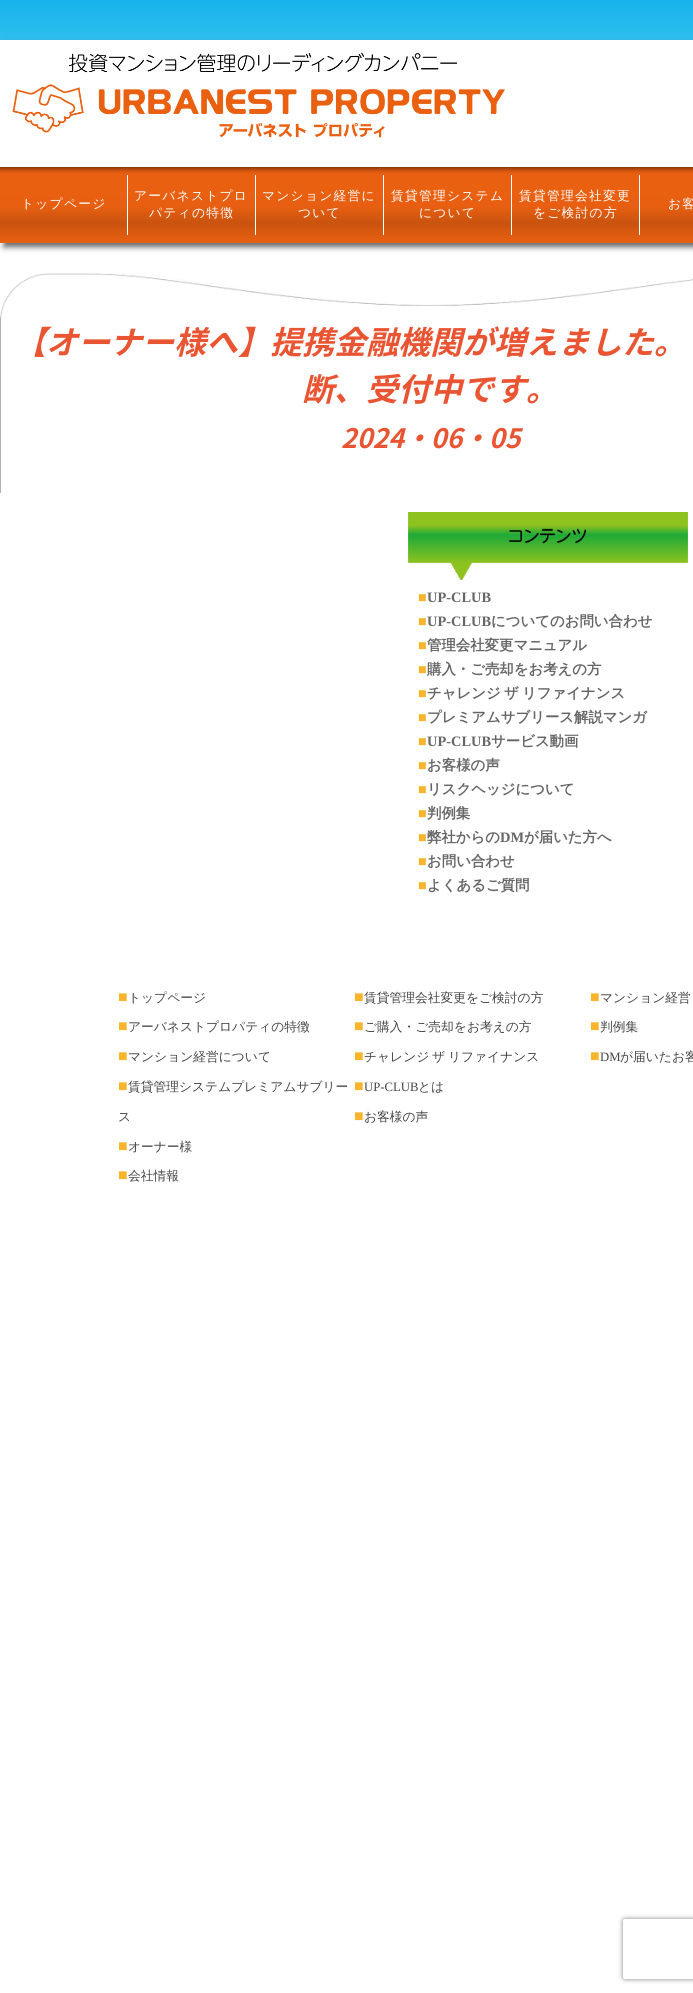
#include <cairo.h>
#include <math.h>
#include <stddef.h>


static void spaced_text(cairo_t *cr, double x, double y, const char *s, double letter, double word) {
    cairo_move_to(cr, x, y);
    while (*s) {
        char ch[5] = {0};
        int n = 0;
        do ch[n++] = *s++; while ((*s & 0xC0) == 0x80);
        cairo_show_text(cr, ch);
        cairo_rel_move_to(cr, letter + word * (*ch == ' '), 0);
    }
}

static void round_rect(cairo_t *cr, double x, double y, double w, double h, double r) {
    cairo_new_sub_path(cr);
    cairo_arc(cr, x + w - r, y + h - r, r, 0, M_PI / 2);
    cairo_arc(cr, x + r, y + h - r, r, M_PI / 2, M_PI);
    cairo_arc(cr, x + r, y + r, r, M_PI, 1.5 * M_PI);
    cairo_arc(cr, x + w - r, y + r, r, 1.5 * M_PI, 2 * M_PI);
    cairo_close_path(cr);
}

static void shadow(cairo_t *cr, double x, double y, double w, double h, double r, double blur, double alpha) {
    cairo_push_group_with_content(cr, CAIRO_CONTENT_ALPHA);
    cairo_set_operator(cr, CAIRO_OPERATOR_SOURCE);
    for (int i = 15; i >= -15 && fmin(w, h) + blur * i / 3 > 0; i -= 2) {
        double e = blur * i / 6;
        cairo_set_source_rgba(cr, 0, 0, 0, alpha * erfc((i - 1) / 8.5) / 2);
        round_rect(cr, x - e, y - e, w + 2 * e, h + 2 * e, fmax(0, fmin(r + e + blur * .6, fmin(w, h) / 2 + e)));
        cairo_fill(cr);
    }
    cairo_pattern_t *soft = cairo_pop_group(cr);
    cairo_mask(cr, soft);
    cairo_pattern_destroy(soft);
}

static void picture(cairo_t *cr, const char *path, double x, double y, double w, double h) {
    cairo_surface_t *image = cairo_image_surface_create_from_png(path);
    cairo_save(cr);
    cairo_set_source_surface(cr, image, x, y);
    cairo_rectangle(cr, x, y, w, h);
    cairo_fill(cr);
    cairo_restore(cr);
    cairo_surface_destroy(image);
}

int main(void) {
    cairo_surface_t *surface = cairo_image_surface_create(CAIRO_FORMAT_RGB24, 693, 1993);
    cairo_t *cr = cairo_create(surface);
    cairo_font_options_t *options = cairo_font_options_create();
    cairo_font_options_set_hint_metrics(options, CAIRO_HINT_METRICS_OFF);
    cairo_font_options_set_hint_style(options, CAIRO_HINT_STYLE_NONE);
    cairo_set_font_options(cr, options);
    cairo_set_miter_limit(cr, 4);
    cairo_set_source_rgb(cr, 1, 1, 1);
    cairo_paint(cr);
    picture(cr, "img1.png", 0, 0, 693, 40);
    cairo_set_source_rgb(cr, 0.4, 0.4, 0.4);
    shadow(cr, 4, 44, 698, 203, 0, 3, 1);
    cairo_set_source_rgb(cr, 1, 1, 1);
    cairo_rectangle(cr, 0, 40, 693, 203);
    cairo_fill(cr);
    picture(cr, "img2.png", 12, 52, 493, 86);
    picture(cr, "img3.png", 0, 167, 693, 76);
    cairo_rectangle(cr, 127, 175, 1, 60);
    cairo_fill(cr);
    cairo_select_font_face(cr, "WenQuanYi Zen Hei Medium", CAIRO_FONT_SLANT_NORMAL, CAIRO_FONT_WEIGHT_NORMAL);
    cairo_set_font_size(cr, 12.75);
    spaced_text(cr, 21, 208, "トップページ", 1.25, 0);
    cairo_rectangle(cr, 255, 175, 1, 60);
    cairo_fill(cr);
    spaced_text(cr, 134, 200, "アーバネストプロ", 1.25, 0);
    spaced_text(cr, 149, 217, "パティの特徴", 1.25, 0);
    cairo_rectangle(cr, 383, 175, 1, 60);
    cairo_fill(cr);
    spaced_text(cr, 262, 200, "マンション経営に", 1.25, 0);
    spaced_text(cr, 298, 217, "ついて", 1.25, 0);
    cairo_rectangle(cr, 511, 175, 1, 60);
    cairo_fill(cr);
    spaced_text(cr, 391, 200, "賃貸管理システム", 1.25, 0);
    spaced_text(cr, 419, 217, "について", 1.25, 0);
    cairo_rectangle(cr, 639, 175, 1, 60);
    cairo_fill(cr);
    spaced_text(cr, 519, 200, "賃貸管理会社変更", 1.25, 0);
    spaced_text(cr, 533, 217, "をご検討の方", 1.25, 0);
    spaced_text(cr, 668, 208, "お客", 1.25, 0);
    picture(cr, "img4.png", 0, 273, 693, 44);
    cairo_set_source_rgb(cr, 0.706, 0.694, 0.69);
    cairo_rectangle(cr, 0, 317, 1, 176);
    cairo_fill(cr);
    cairo_select_font_face(cr, "Noto Sans JP", CAIRO_FONT_SLANT_ITALIC, CAIRO_FONT_WEIGHT_BOLD);
    cairo_set_font_size(cr, 32);
    cairo_set_source_rgb(cr, 0.914, 0.333, 0.196);
    cairo_move_to(cr, 14, 354);
    cairo_show_text(cr, "【オーナー様へ】提携金融機関が増えました。");
    cairo_move_to(cr, 302, 401);
    cairo_show_text(cr, "断、受付中です。");
    cairo_set_font_size(cr, 26.75);
    cairo_move_to(cr, 341, 448);
    cairo_show_text(cr, "2024・06・05");
    picture(cr, "img5.png", 408, 512, 280, 68);
    cairo_select_font_face(cr, "Liberation Serif", CAIRO_FONT_SLANT_NORMAL, CAIRO_FONT_WEIGHT_BOLD);
    cairo_set_font_size(cr, 14.4);
    cairo_set_source_rgb(cr, 0.969, 0.71, 0.173);
    cairo_move_to(cr, 418, 602);
    cairo_show_text(cr, "■");
    cairo_set_source_rgb(cr, 0.4, 0.4, 0.4);
    cairo_move_to(cr, 427, 602);
    cairo_show_text(cr, "UP-CLUB");
    cairo_set_source_rgb(cr, 0.969, 0.71, 0.173);
    cairo_move_to(cr, 418, 626);
    cairo_show_text(cr, "■");
    cairo_set_source_rgb(cr, 0.4, 0.4, 0.4);
    cairo_move_to(cr, 427, 626);
    cairo_show_text(cr, "UP-CLUB");
    cairo_select_font_face(cr, "WenQuanYi Zen Hei", CAIRO_FONT_SLANT_NORMAL, CAIRO_FONT_WEIGHT_BOLD);
    cairo_move_to(cr, 491, 626);
    cairo_show_text(cr, "についてのお問い合わせ");
    cairo_select_font_face(cr, "Liberation Serif", CAIRO_FONT_SLANT_NORMAL, CAIRO_FONT_WEIGHT_BOLD);
    cairo_set_source_rgb(cr, 0.969, 0.71, 0.173);
    cairo_move_to(cr, 418, 650);
    cairo_show_text(cr, "■");
    cairo_select_font_face(cr, "WenQuanYi Zen Hei", CAIRO_FONT_SLANT_NORMAL, CAIRO_FONT_WEIGHT_BOLD);
    cairo_set_source_rgb(cr, 0.4, 0.4, 0.4);
    cairo_move_to(cr, 427, 650);
    cairo_show_text(cr, "管理会社変更マニュアル");
    cairo_select_font_face(cr, "Liberation Serif", CAIRO_FONT_SLANT_NORMAL, CAIRO_FONT_WEIGHT_BOLD);
    cairo_set_source_rgb(cr, 0.969, 0.71, 0.173);
    cairo_move_to(cr, 418, 674);
    cairo_show_text(cr, "■");
    cairo_select_font_face(cr, "WenQuanYi Zen Hei", CAIRO_FONT_SLANT_NORMAL, CAIRO_FONT_WEIGHT_BOLD);
    cairo_set_source_rgb(cr, 0.4, 0.4, 0.4);
    cairo_move_to(cr, 427, 674);
    cairo_show_text(cr, "購入・ご売却をお考えの方");
    cairo_select_font_face(cr, "Liberation Serif", CAIRO_FONT_SLANT_NORMAL, CAIRO_FONT_WEIGHT_BOLD);
    cairo_set_source_rgb(cr, 0.969, 0.71, 0.173);
    cairo_move_to(cr, 418, 698);
    cairo_show_text(cr, "■");
    cairo_select_font_face(cr, "WenQuanYi Zen Hei", CAIRO_FONT_SLANT_NORMAL, CAIRO_FONT_WEIGHT_BOLD);
    cairo_set_source_rgb(cr, 0.4, 0.4, 0.4);
    spaced_text(cr, 427, 698, "チャレンジ ザ リファイナンス", 0, -1);
    cairo_select_font_face(cr, "Liberation Serif", CAIRO_FONT_SLANT_NORMAL, CAIRO_FONT_WEIGHT_BOLD);
    cairo_set_source_rgb(cr, 0.969, 0.71, 0.173);
    cairo_move_to(cr, 418, 722);
    cairo_show_text(cr, "■");
    cairo_select_font_face(cr, "WenQuanYi Zen Hei", CAIRO_FONT_SLANT_NORMAL, CAIRO_FONT_WEIGHT_BOLD);
    cairo_set_source_rgb(cr, 0.4, 0.4, 0.4);
    cairo_move_to(cr, 427, 722);
    cairo_show_text(cr, "プレミアムサブリース解説マンガ");
    cairo_select_font_face(cr, "Liberation Serif", CAIRO_FONT_SLANT_NORMAL, CAIRO_FONT_WEIGHT_BOLD);
    cairo_set_source_rgb(cr, 0.969, 0.71, 0.173);
    cairo_move_to(cr, 418, 746);
    cairo_show_text(cr, "■");
    cairo_set_source_rgb(cr, 0.4, 0.4, 0.4);
    cairo_move_to(cr, 427, 746);
    cairo_show_text(cr, "UP-CLUB");
    cairo_select_font_face(cr, "WenQuanYi Zen Hei", CAIRO_FONT_SLANT_NORMAL, CAIRO_FONT_WEIGHT_BOLD);
    cairo_move_to(cr, 491, 746);
    cairo_show_text(cr, "サービス動画");
    cairo_select_font_face(cr, "Liberation Serif", CAIRO_FONT_SLANT_NORMAL, CAIRO_FONT_WEIGHT_BOLD);
    cairo_set_source_rgb(cr, 0.969, 0.71, 0.173);
    cairo_move_to(cr, 418, 770);
    cairo_show_text(cr, "■");
    cairo_select_font_face(cr, "WenQuanYi Zen Hei", CAIRO_FONT_SLANT_NORMAL, CAIRO_FONT_WEIGHT_BOLD);
    cairo_set_source_rgb(cr, 0.4, 0.4, 0.4);
    cairo_move_to(cr, 427, 770);
    cairo_show_text(cr, "お客様の声");
    cairo_select_font_face(cr, "Liberation Serif", CAIRO_FONT_SLANT_NORMAL, CAIRO_FONT_WEIGHT_BOLD);
    cairo_set_source_rgb(cr, 0.969, 0.71, 0.173);
    cairo_move_to(cr, 418, 794);
    cairo_show_text(cr, "■");
    cairo_select_font_face(cr, "WenQuanYi Zen Hei", CAIRO_FONT_SLANT_NORMAL, CAIRO_FONT_WEIGHT_BOLD);
    cairo_set_source_rgb(cr, 0.4, 0.4, 0.4);
    cairo_move_to(cr, 427, 794);
    cairo_show_text(cr, "リスクヘッジについて");
    cairo_select_font_face(cr, "Liberation Serif", CAIRO_FONT_SLANT_NORMAL, CAIRO_FONT_WEIGHT_BOLD);
    cairo_set_source_rgb(cr, 0.969, 0.71, 0.173);
    cairo_move_to(cr, 418, 818);
    cairo_show_text(cr, "■");
    cairo_select_font_face(cr, "WenQuanYi Zen Hei", CAIRO_FONT_SLANT_NORMAL, CAIRO_FONT_WEIGHT_BOLD);
    cairo_set_source_rgb(cr, 0.4, 0.4, 0.4);
    cairo_move_to(cr, 427, 818);
    cairo_show_text(cr, "判例集");
    cairo_select_font_face(cr, "Liberation Serif", CAIRO_FONT_SLANT_NORMAL, CAIRO_FONT_WEIGHT_BOLD);
    cairo_set_source_rgb(cr, 0.969, 0.71, 0.173);
    cairo_move_to(cr, 418, 842);
    cairo_show_text(cr, "■");
    cairo_select_font_face(cr, "WenQuanYi Zen Hei", CAIRO_FONT_SLANT_NORMAL, CAIRO_FONT_WEIGHT_BOLD);
    cairo_set_source_rgb(cr, 0.4, 0.4, 0.4);
    cairo_move_to(cr, 427, 842);
    cairo_show_text(cr, "弊社からの");
    cairo_select_font_face(cr, "Liberation Serif", CAIRO_FONT_SLANT_NORMAL, CAIRO_FONT_WEIGHT_BOLD);
    cairo_move_to(cr, 500, 842);
    cairo_show_text(cr, "DM");
    cairo_select_font_face(cr, "WenQuanYi Zen Hei", CAIRO_FONT_SLANT_NORMAL, CAIRO_FONT_WEIGHT_BOLD);
    cairo_move_to(cr, 524, 842);
    cairo_show_text(cr, "が届いた方へ");
    cairo_select_font_face(cr, "Liberation Serif", CAIRO_FONT_SLANT_NORMAL, CAIRO_FONT_WEIGHT_BOLD);
    cairo_set_source_rgb(cr, 0.969, 0.71, 0.173);
    cairo_move_to(cr, 418, 866);
    cairo_show_text(cr, "■");
    cairo_select_font_face(cr, "WenQuanYi Zen Hei", CAIRO_FONT_SLANT_NORMAL, CAIRO_FONT_WEIGHT_BOLD);
    cairo_set_source_rgb(cr, 0.4, 0.4, 0.4);
    cairo_move_to(cr, 427, 866);
    cairo_show_text(cr, "お問い合わせ");
    cairo_select_font_face(cr, "Liberation Serif", CAIRO_FONT_SLANT_NORMAL, CAIRO_FONT_WEIGHT_BOLD);
    cairo_set_source_rgb(cr, 0.969, 0.71, 0.173);
    cairo_move_to(cr, 418, 890);
    cairo_show_text(cr, "■");
    cairo_select_font_face(cr, "WenQuanYi Zen Hei", CAIRO_FONT_SLANT_NORMAL, CAIRO_FONT_WEIGHT_BOLD);
    cairo_set_source_rgb(cr, 0.4, 0.4, 0.4);
    cairo_move_to(cr, 427, 890);
    cairo_show_text(cr, "よくあるご質問");
    cairo_select_font_face(cr, "Liberation Serif", CAIRO_FONT_SLANT_NORMAL, CAIRO_FONT_WEIGHT_NORMAL);
    cairo_set_font_size(cr, 16);
    cairo_set_source_rgb(cr, 0.969, 0.71, 0.173);
    cairo_move_to(cr, 118, 1002);
    cairo_show_text(cr, "■");
    cairo_select_font_face(cr, "WenQuanYi Zen Hei Medium", CAIRO_FONT_SLANT_NORMAL, CAIRO_FONT_WEIGHT_NORMAL);
    cairo_set_font_size(cr, 12.75);
    cairo_set_source_rgb(cr, 0.267, 0.267, 0.267);
    cairo_move_to(cr, 128, 1002);
    cairo_show_text(cr, "トップページ");
    cairo_select_font_face(cr, "Liberation Serif", CAIRO_FONT_SLANT_NORMAL, CAIRO_FONT_WEIGHT_NORMAL);
    cairo_set_font_size(cr, 16);
    cairo_set_source_rgb(cr, 0.969, 0.71, 0.173);
    cairo_move_to(cr, 118, 1031);
    cairo_show_text(cr, "■");
    cairo_select_font_face(cr, "WenQuanYi Zen Hei Medium", CAIRO_FONT_SLANT_NORMAL, CAIRO_FONT_WEIGHT_NORMAL);
    cairo_set_font_size(cr, 12.75);
    cairo_set_source_rgb(cr, 0.267, 0.267, 0.267);
    cairo_move_to(cr, 128, 1031);
    cairo_show_text(cr, "アーバネストプロパティの特徴");
    cairo_select_font_face(cr, "Liberation Serif", CAIRO_FONT_SLANT_NORMAL, CAIRO_FONT_WEIGHT_NORMAL);
    cairo_set_font_size(cr, 16);
    cairo_set_source_rgb(cr, 0.969, 0.71, 0.173);
    cairo_move_to(cr, 118, 1061);
    cairo_show_text(cr, "■");
    cairo_select_font_face(cr, "WenQuanYi Zen Hei Medium", CAIRO_FONT_SLANT_NORMAL, CAIRO_FONT_WEIGHT_NORMAL);
    cairo_set_font_size(cr, 12.75);
    cairo_set_source_rgb(cr, 0.267, 0.267, 0.267);
    cairo_move_to(cr, 128, 1061);
    cairo_show_text(cr, "マンション経営について");
    cairo_select_font_face(cr, "Liberation Serif", CAIRO_FONT_SLANT_NORMAL, CAIRO_FONT_WEIGHT_NORMAL);
    cairo_set_font_size(cr, 16);
    cairo_set_source_rgb(cr, 0.969, 0.71, 0.173);
    cairo_move_to(cr, 118, 1091);
    cairo_show_text(cr, "■");
    cairo_select_font_face(cr, "WenQuanYi Zen Hei Medium", CAIRO_FONT_SLANT_NORMAL, CAIRO_FONT_WEIGHT_NORMAL);
    cairo_set_font_size(cr, 12.75);
    cairo_set_source_rgb(cr, 0.267, 0.267, 0.267);
    cairo_move_to(cr, 128, 1091);
    cairo_show_text(cr, "賃貸管理システムプレミアムサブリー");
    cairo_move_to(cr, 118, 1121);
    cairo_show_text(cr, "ス");
    cairo_select_font_face(cr, "Liberation Serif", CAIRO_FONT_SLANT_NORMAL, CAIRO_FONT_WEIGHT_NORMAL);
    cairo_set_font_size(cr, 16);
    cairo_set_source_rgb(cr, 0.969, 0.71, 0.173);
    cairo_move_to(cr, 118, 1151);
    cairo_show_text(cr, "■");
    cairo_select_font_face(cr, "WenQuanYi Zen Hei Medium", CAIRO_FONT_SLANT_NORMAL, CAIRO_FONT_WEIGHT_NORMAL);
    cairo_set_font_size(cr, 12.75);
    cairo_set_source_rgb(cr, 0.267, 0.267, 0.267);
    cairo_move_to(cr, 128, 1151);
    cairo_show_text(cr, "オーナー様");
    cairo_select_font_face(cr, "Liberation Serif", CAIRO_FONT_SLANT_NORMAL, CAIRO_FONT_WEIGHT_NORMAL);
    cairo_set_font_size(cr, 16);
    cairo_set_source_rgb(cr, 0.969, 0.71, 0.173);
    cairo_move_to(cr, 118, 1180);
    cairo_show_text(cr, "■");
    cairo_select_font_face(cr, "WenQuanYi Zen Hei Medium", CAIRO_FONT_SLANT_NORMAL, CAIRO_FONT_WEIGHT_NORMAL);
    cairo_set_font_size(cr, 12.75);
    cairo_set_source_rgb(cr, 0.267, 0.267, 0.267);
    cairo_move_to(cr, 128, 1180);
    cairo_show_text(cr, "会社情報");
    cairo_select_font_face(cr, "Liberation Serif", CAIRO_FONT_SLANT_NORMAL, CAIRO_FONT_WEIGHT_NORMAL);
    cairo_set_font_size(cr, 16);
    cairo_set_source_rgb(cr, 0.969, 0.71, 0.173);
    cairo_move_to(cr, 354, 1002);
    cairo_show_text(cr, "■");
    cairo_select_font_face(cr, "WenQuanYi Zen Hei Medium", CAIRO_FONT_SLANT_NORMAL, CAIRO_FONT_WEIGHT_NORMAL);
    cairo_set_font_size(cr, 12.75);
    cairo_set_source_rgb(cr, 0.267, 0.267, 0.267);
    cairo_move_to(cr, 364, 1002);
    cairo_show_text(cr, "賃貸管理会社変更をご検討の方");
    cairo_select_font_face(cr, "Liberation Serif", CAIRO_FONT_SLANT_NORMAL, CAIRO_FONT_WEIGHT_NORMAL);
    cairo_set_font_size(cr, 16);
    cairo_set_source_rgb(cr, 0.969, 0.71, 0.173);
    cairo_move_to(cr, 354, 1031);
    cairo_show_text(cr, "■");
    cairo_select_font_face(cr, "WenQuanYi Zen Hei Medium", CAIRO_FONT_SLANT_NORMAL, CAIRO_FONT_WEIGHT_NORMAL);
    cairo_set_font_size(cr, 12.75);
    cairo_set_source_rgb(cr, 0.267, 0.267, 0.267);
    cairo_move_to(cr, 364, 1031);
    cairo_show_text(cr, "ご購入・ご売却をお考えの方");
    cairo_select_font_face(cr, "Liberation Serif", CAIRO_FONT_SLANT_NORMAL, CAIRO_FONT_WEIGHT_NORMAL);
    cairo_set_font_size(cr, 16);
    cairo_set_source_rgb(cr, 0.969, 0.71, 0.173);
    cairo_move_to(cr, 354, 1061);
    cairo_show_text(cr, "■");
    cairo_select_font_face(cr, "WenQuanYi Zen Hei Medium", CAIRO_FONT_SLANT_NORMAL, CAIRO_FONT_WEIGHT_NORMAL);
    cairo_set_font_size(cr, 12.75);
    cairo_set_source_rgb(cr, 0.267, 0.267, 0.267);
    spaced_text(cr, 364, 1061, "チャレンジ ザ リファイナンス", 0, -1);
    cairo_select_font_face(cr, "Liberation Serif", CAIRO_FONT_SLANT_NORMAL, CAIRO_FONT_WEIGHT_NORMAL);
    cairo_set_font_size(cr, 16);
    cairo_set_source_rgb(cr, 0.969, 0.71, 0.173);
    cairo_move_to(cr, 354, 1091);
    cairo_show_text(cr, "■");
    cairo_set_font_size(cr, 12.75);
    cairo_set_source_rgb(cr, 0.267, 0.267, 0.267);
    cairo_move_to(cr, 364, 1091);
    cairo_show_text(cr, "UP-CLUB");
    cairo_select_font_face(cr, "WenQuanYi Zen Hei Medium", CAIRO_FONT_SLANT_NORMAL, CAIRO_FONT_WEIGHT_NORMAL);
    cairo_move_to(cr, 418, 1091);
    cairo_show_text(cr, "とは");
    cairo_select_font_face(cr, "Liberation Serif", CAIRO_FONT_SLANT_NORMAL, CAIRO_FONT_WEIGHT_NORMAL);
    cairo_set_font_size(cr, 16);
    cairo_set_source_rgb(cr, 0.969, 0.71, 0.173);
    cairo_move_to(cr, 354, 1121);
    cairo_show_text(cr, "■");
    cairo_select_font_face(cr, "WenQuanYi Zen Hei Medium", CAIRO_FONT_SLANT_NORMAL, CAIRO_FONT_WEIGHT_NORMAL);
    cairo_set_font_size(cr, 12.75);
    cairo_set_source_rgb(cr, 0.267, 0.267, 0.267);
    cairo_move_to(cr, 364, 1121);
    cairo_show_text(cr, "お客様の声");
    cairo_select_font_face(cr, "Liberation Serif", CAIRO_FONT_SLANT_NORMAL, CAIRO_FONT_WEIGHT_NORMAL);
    cairo_set_font_size(cr, 16);
    cairo_set_source_rgb(cr, 0.969, 0.71, 0.173);
    cairo_move_to(cr, 590, 1002);
    cairo_show_text(cr, "■");
    cairo_select_font_face(cr, "WenQuanYi Zen Hei Medium", CAIRO_FONT_SLANT_NORMAL, CAIRO_FONT_WEIGHT_NORMAL);
    cairo_set_font_size(cr, 12.75);
    cairo_set_source_rgb(cr, 0.267, 0.267, 0.267);
    cairo_move_to(cr, 600, 1002);
    cairo_show_text(cr, "マンション経営");
    cairo_select_font_face(cr, "Liberation Serif", CAIRO_FONT_SLANT_NORMAL, CAIRO_FONT_WEIGHT_NORMAL);
    cairo_set_font_size(cr, 16);
    cairo_set_source_rgb(cr, 0.969, 0.71, 0.173);
    cairo_move_to(cr, 590, 1031);
    cairo_show_text(cr, "■");
    cairo_select_font_face(cr, "WenQuanYi Zen Hei Medium", CAIRO_FONT_SLANT_NORMAL, CAIRO_FONT_WEIGHT_NORMAL);
    cairo_set_font_size(cr, 12.75);
    cairo_set_source_rgb(cr, 0.267, 0.267, 0.267);
    cairo_move_to(cr, 600, 1031);
    cairo_show_text(cr, "判例集");
    cairo_select_font_face(cr, "Liberation Serif", CAIRO_FONT_SLANT_NORMAL, CAIRO_FONT_WEIGHT_NORMAL);
    cairo_set_font_size(cr, 16);
    cairo_set_source_rgb(cr, 0.969, 0.71, 0.173);
    cairo_move_to(cr, 590, 1061);
    cairo_show_text(cr, "■");
    cairo_set_font_size(cr, 12.75);
    cairo_set_source_rgb(cr, 0.267, 0.267, 0.267);
    cairo_move_to(cr, 600, 1061);
    cairo_show_text(cr, "DM");
    cairo_select_font_face(cr, "WenQuanYi Zen Hei Medium", CAIRO_FONT_SLANT_NORMAL, CAIRO_FONT_WEIGHT_NORMAL);
    cairo_move_to(cr, 620, 1061);
    cairo_show_text(cr, "が届いたお客");
    cairo_save(cr);
    cairo_set_fill_rule(cr, CAIRO_FILL_RULE_EVEN_ODD);
    cairo_new_path(cr);
    cairo_move_to(cr, 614, 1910);
    cairo_line_to(cr, 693, 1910);
    cairo_line_to(cr, 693, 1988);
    cairo_line_to(cr, 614, 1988);
    cairo_close_path(cr);
    cairo_move_to(cr, 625, 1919);
    cairo_line_to(cr, 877, 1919);
    cairo_curve_to(cr, 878, 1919, 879, 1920, 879, 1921);
    cairo_line_to(cr, 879, 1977);
    cairo_curve_to(cr, 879, 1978, 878, 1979, 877, 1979);
    cairo_line_to(cr, 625, 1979);
    cairo_curve_to(cr, 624, 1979, 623, 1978, 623, 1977);
    cairo_line_to(cr, 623, 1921);
    cairo_curve_to(cr, 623, 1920, 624, 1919, 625, 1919);
    cairo_close_path(cr);
    cairo_clip(cr);
    cairo_set_source_rgb(cr, 0.502, 0.502, 0.502);
    shadow(cr, 623, 1919, 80, 60, 2, 2.5, 1);
    cairo_restore(cr);
    cairo_surface_write_to_png(surface, "page.png");
    cairo_font_options_destroy(options);
    cairo_destroy(cr);
    cairo_surface_destroy(surface);
    return 0;
}
